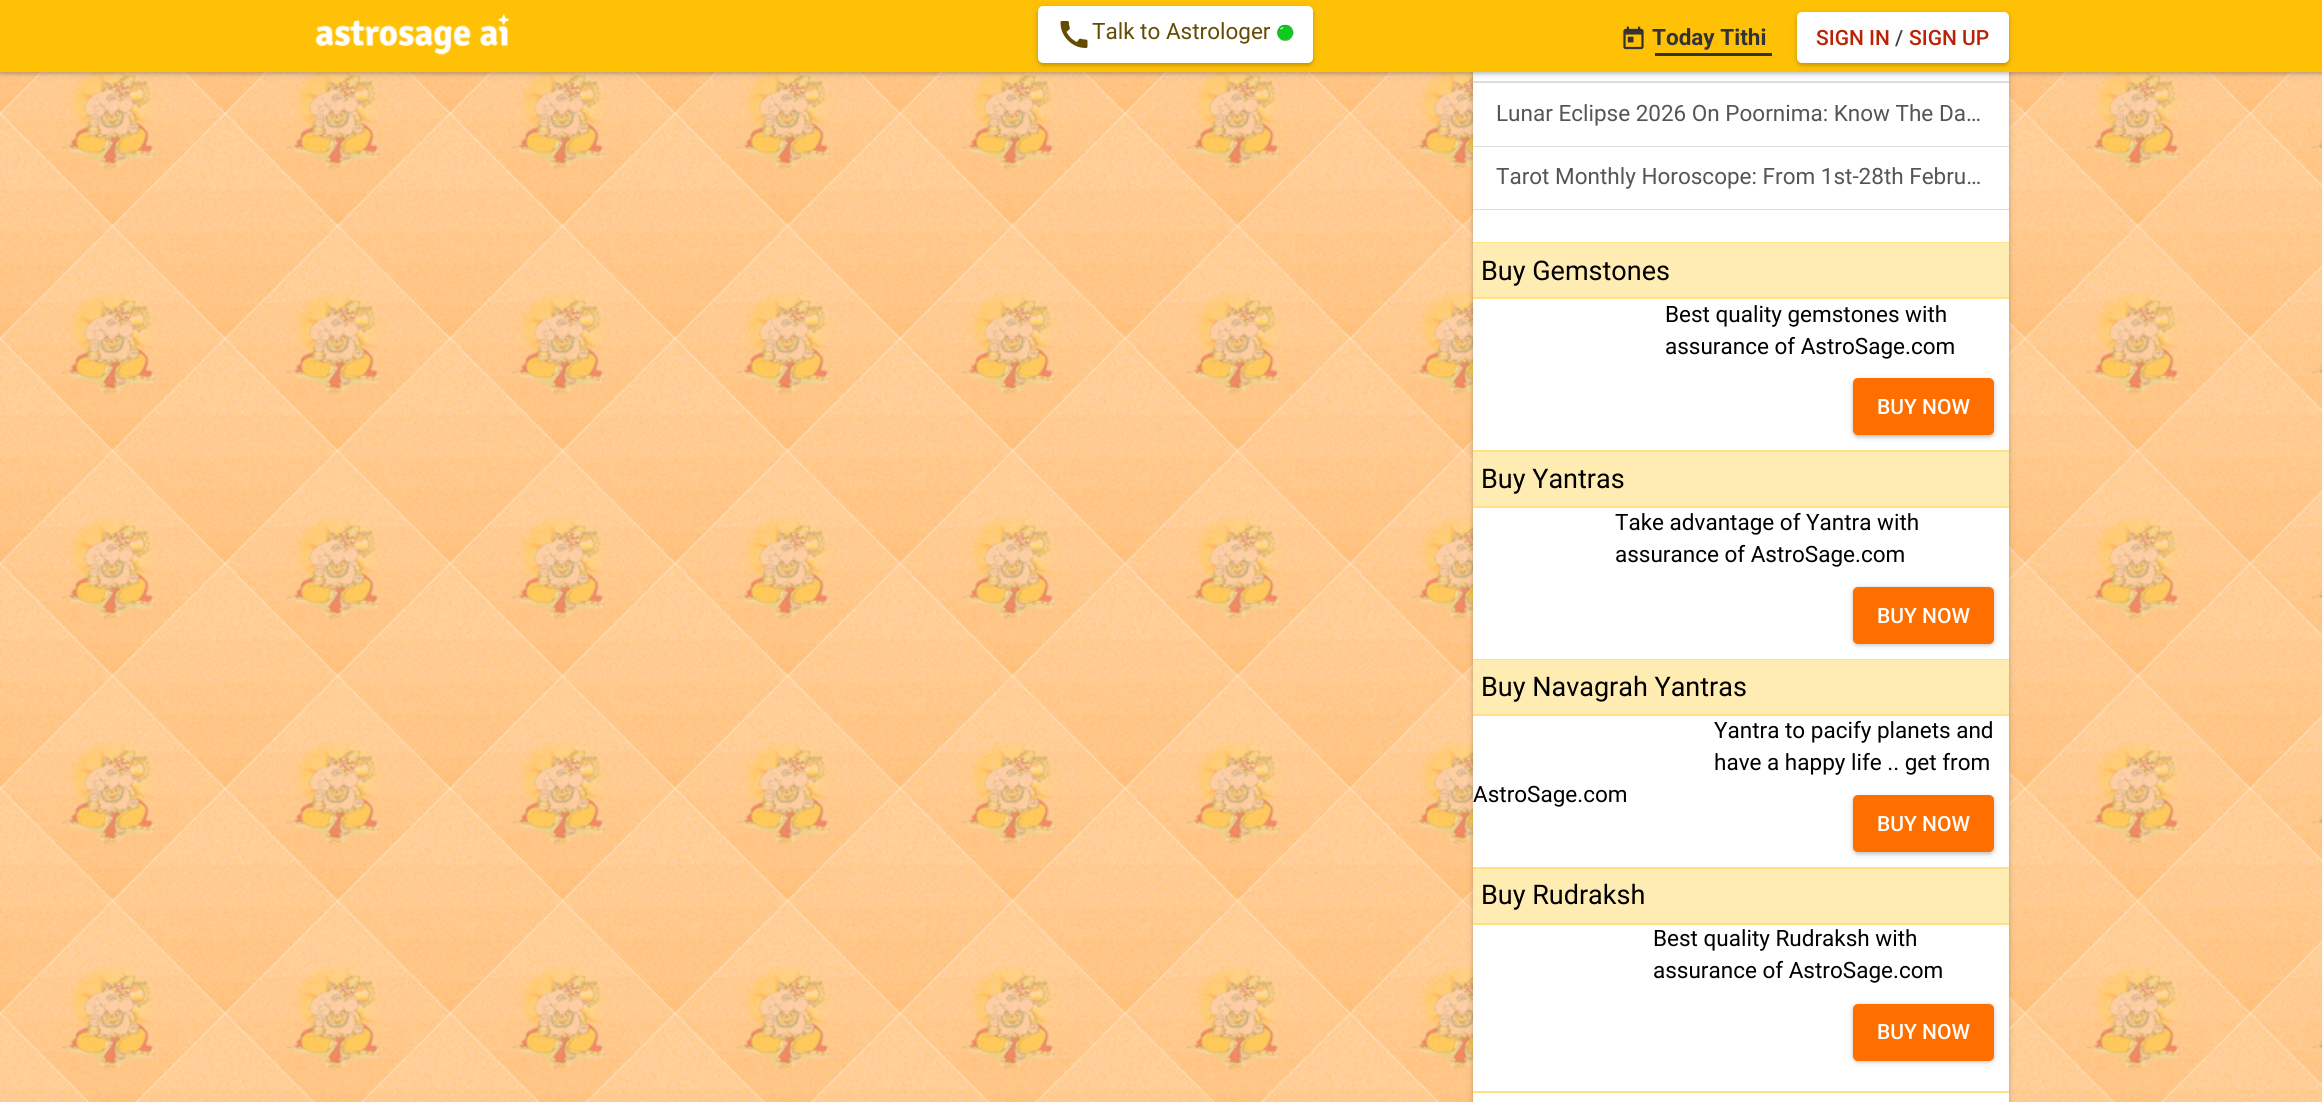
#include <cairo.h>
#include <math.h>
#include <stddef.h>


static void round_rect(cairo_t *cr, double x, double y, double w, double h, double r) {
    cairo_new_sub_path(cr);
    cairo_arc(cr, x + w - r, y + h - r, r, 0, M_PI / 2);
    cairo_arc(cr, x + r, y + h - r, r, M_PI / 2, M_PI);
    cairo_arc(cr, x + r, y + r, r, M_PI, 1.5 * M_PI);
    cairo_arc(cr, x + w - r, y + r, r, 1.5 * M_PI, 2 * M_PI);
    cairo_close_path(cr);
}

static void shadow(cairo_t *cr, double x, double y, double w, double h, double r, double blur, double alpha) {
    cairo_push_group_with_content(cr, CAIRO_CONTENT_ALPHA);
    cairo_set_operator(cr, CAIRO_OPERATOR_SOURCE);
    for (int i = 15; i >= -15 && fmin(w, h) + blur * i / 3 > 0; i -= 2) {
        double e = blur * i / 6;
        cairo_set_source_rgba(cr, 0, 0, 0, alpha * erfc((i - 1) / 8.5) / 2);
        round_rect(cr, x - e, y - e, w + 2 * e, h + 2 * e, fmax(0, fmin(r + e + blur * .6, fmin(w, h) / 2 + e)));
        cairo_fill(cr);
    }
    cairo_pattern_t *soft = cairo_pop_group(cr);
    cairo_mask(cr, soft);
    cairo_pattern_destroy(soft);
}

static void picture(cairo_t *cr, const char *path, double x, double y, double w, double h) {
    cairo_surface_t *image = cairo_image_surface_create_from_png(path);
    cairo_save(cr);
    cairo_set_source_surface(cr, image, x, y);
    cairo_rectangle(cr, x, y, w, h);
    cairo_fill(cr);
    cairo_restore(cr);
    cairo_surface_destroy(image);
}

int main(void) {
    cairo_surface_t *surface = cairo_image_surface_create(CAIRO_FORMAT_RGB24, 2322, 1102);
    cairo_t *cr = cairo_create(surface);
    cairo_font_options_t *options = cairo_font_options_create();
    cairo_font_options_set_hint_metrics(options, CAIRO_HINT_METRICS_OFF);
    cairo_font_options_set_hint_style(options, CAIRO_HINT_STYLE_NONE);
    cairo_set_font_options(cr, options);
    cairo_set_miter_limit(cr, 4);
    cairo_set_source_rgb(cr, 1, 1, 1);
    cairo_paint(cr);
    picture(cr, "img1.png", 0, 72, 2322, 1030);
    cairo_set_source_rgb(cr, 0, 0, 0);
    shadow(cr, 1473, -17, 536, 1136, 5, 4, 0.12);
    shadow(cr, 1473, -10, 536, 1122, 5, 1.5, 0.16);
    cairo_set_source_rgb(cr, 1, 1, 1);
    cairo_rectangle(cr, 1473, 72, 536, 1030);
    cairo_fill(cr);
    cairo_set_source_rgb(cr, 0.867, 0.867, 0.867);
    cairo_rectangle(cr, 1473, 81, 536, 2);
    cairo_fill(cr);
    cairo_set_source_rgb(cr, 0, 0, 0);
    shadow(cr, 0, 2, 2322, 72, 0, 4, 0.12);
    shadow(cr, 0, 2, 2322, 72, 0, 1.5, 0.16);
    cairo_set_source_rgb(cr, 1, 0.757, 0.027);
    cairo_rectangle(cr, 0, 0, 2322, 72);
    cairo_fill(cr);
    picture(cr, "img2.png", 315, 13, 195, 42);
    cairo_set_source_rgb(cr, 0, 0, 0);
    shadow(cr, 1038, 8, 275, 57, 5, 4, 0.12);
    shadow(cr, 1038, 8, 275, 57, 5, 1.5, 0.16);
    cairo_set_source_rgb(cr, 1, 1, 1);
    round_rect(cr, 1038, 6, 275, 57, 5);
    cairo_fill(cr);
    picture(cr, "img3.png", 1060, 21, 28, 27);
    cairo_select_font_face(cr, "Roboto", CAIRO_FONT_SLANT_NORMAL, CAIRO_FONT_WEIGHT_NORMAL);
    cairo_set_font_size(cr, 22.5);
    cairo_set_source_rgb(cr, 0.396, 0.298, 0.008);
    cairo_move_to(cr, 1092, 39);
    cairo_show_text(cr, "Talk to Astrologer");
    picture(cr, "img4.png", 1277, 24, 17, 18);
    picture(cr, "img5.png", 1623, 26, 21, 24);
    cairo_select_font_face(cr, "Roboto", CAIRO_FONT_SLANT_NORMAL, CAIRO_FONT_WEIGHT_BOLD);
    cairo_set_source_rgb(cr, 0.2, 0.2, 0.2);
    cairo_move_to(cr, 1652, 45);
    cairo_show_text(cr, "Today Tithi");
    cairo_rectangle(cr, 1655, 53, 117, 3);
    cairo_fill(cr);
    cairo_set_source_rgb(cr, 0, 0, 0);
    shadow(cr, 1797, 14, 212, 51, 5, 4, 0.12);
    shadow(cr, 1797, 14, 212, 51, 5, 1.5, 0.16);
    cairo_set_source_rgb(cr, 1, 1, 1);
    round_rect(cr, 1797, 12, 212, 51, 5);
    cairo_fill(cr);
    cairo_select_font_face(cr, "Roboto Medium", CAIRO_FONT_SLANT_NORMAL, CAIRO_FONT_WEIGHT_NORMAL);
    cairo_set_font_size(cr, 21);
    cairo_set_source_rgb(cr, 0.725, 0.133, 0.016);
    cairo_move_to(cr, 1816, 45);
    cairo_show_text(cr, "SIGN IN");
    cairo_set_source_rgb(cr, 0.267, 0.267, 0.267);
    cairo_move_to(cr, 1895, 45);
    cairo_show_text(cr, "/");
    cairo_set_source_rgb(cr, 0.725, 0.133, 0.016);
    cairo_move_to(cr, 1909, 45);
    cairo_show_text(cr, "SIGN UP");
    cairo_set_source_rgb(cr, 0.867, 0.867, 0.867);
    cairo_rectangle(cr, 1473, 146, 536, 1);
    cairo_fill(cr);
    cairo_select_font_face(cr, "Roboto", CAIRO_FONT_SLANT_NORMAL, CAIRO_FONT_WEIGHT_NORMAL);
    cairo_set_font_size(cr, 22.5);
    cairo_set_source_rgb(cr, 0.333, 0.333, 0.333);
    cairo_move_to(cr, 1496, 121);
    cairo_show_text(cr, "Lunar Eclipse 2026 On Poornima: Know The Da…");
    cairo_set_source_rgb(cr, 0.867, 0.867, 0.867);
    cairo_rectangle(cr, 1473, 209, 536, 1);
    cairo_fill(cr);
    cairo_set_source_rgb(cr, 0.333, 0.333, 0.333);
    cairo_move_to(cr, 1496, 184);
    cairo_show_text(cr, "Tarot Monthly Horoscope: From 1st-28th Febru…");
    cairo_set_source_rgb(cr, 1, 0.878, 0.51);
    cairo_rectangle(cr, 1473, 242, 536, 1);
    cairo_fill(cr);
    cairo_set_source_rgb(cr, 1, 0.925, 0.702);
    cairo_rectangle(cr, 1473, 243, 536, 54);
    cairo_fill(cr);
    cairo_set_source_rgb(cr, 1, 0.878, 0.51);
    cairo_rectangle(cr, 1473, 297, 536, 2);
    cairo_fill(cr);
    cairo_set_font_size(cr, 27);
    cairo_set_source_rgb(cr, 0, 0, 0);
    cairo_move_to(cr, 1481, 280);
    cairo_show_text(cr, "Buy Gemstones");
    cairo_set_font_size(cr, 22.5);
    cairo_move_to(cr, 1665, 322);
    cairo_show_text(cr, "Best quality gemstones with");
    cairo_move_to(cr, 1665, 354);
    cairo_show_text(cr, "assurance of AstroSage.com");
    cairo_set_source_rgb(cr, 0, 0, 0);
    shadow(cr, 1853, 380, 141, 57, 5, 4, 0.12);
    shadow(cr, 1853, 380, 141, 57, 5, 1.5, 0.16);
    cairo_set_source_rgb(cr, 1, 0.435, 0);
    round_rect(cr, 1853, 378, 141, 57, 5);
    cairo_fill(cr);
    cairo_select_font_face(cr, "Roboto Medium", CAIRO_FONT_SLANT_NORMAL, CAIRO_FONT_WEIGHT_NORMAL);
    cairo_set_font_size(cr, 21);
    cairo_set_source_rgb(cr, 1, 1, 1);
    cairo_move_to(cr, 1877, 414);
    cairo_show_text(cr, "BUY NOW");
    cairo_set_source_rgb(cr, 1, 0.878, 0.51);
    cairo_rectangle(cr, 1473, 450, 536, 2);
    cairo_fill(cr);
    cairo_set_source_rgb(cr, 1, 0.925, 0.702);
    cairo_rectangle(cr, 1473, 452, 536, 54);
    cairo_fill(cr);
    cairo_set_source_rgb(cr, 1, 0.878, 0.51);
    cairo_rectangle(cr, 1473, 506, 536, 2);
    cairo_fill(cr);
    cairo_select_font_face(cr, "Roboto", CAIRO_FONT_SLANT_NORMAL, CAIRO_FONT_WEIGHT_NORMAL);
    cairo_set_font_size(cr, 27);
    cairo_set_source_rgb(cr, 0, 0, 0);
    cairo_move_to(cr, 1481, 488);
    cairo_show_text(cr, "Buy Yantras");
    cairo_set_font_size(cr, 22.5);
    cairo_move_to(cr, 1615, 530);
    cairo_show_text(cr, "Take advantage of Yantra with");
    cairo_move_to(cr, 1615, 562);
    cairo_show_text(cr, "assurance of AstroSage.com");
    cairo_set_source_rgb(cr, 0, 0, 0);
    shadow(cr, 1853, 588, 141, 57, 5, 4, 0.12);
    shadow(cr, 1853, 588, 141, 57, 5, 1.5, 0.16);
    cairo_set_source_rgb(cr, 1, 0.435, 0);
    round_rect(cr, 1853, 587, 141, 57, 5);
    cairo_fill(cr);
    cairo_select_font_face(cr, "Roboto Medium", CAIRO_FONT_SLANT_NORMAL, CAIRO_FONT_WEIGHT_NORMAL);
    cairo_set_font_size(cr, 21);
    cairo_set_source_rgb(cr, 1, 1, 1);
    cairo_move_to(cr, 1877, 623);
    cairo_show_text(cr, "BUY NOW");
    cairo_set_source_rgb(cr, 1, 0.878, 0.51);
    cairo_rectangle(cr, 1473, 659, 536, 1);
    cairo_fill(cr);
    cairo_set_source_rgb(cr, 1, 0.925, 0.702);
    cairo_rectangle(cr, 1473, 660, 536, 54);
    cairo_fill(cr);
    cairo_set_source_rgb(cr, 1, 0.878, 0.51);
    cairo_rectangle(cr, 1473, 714, 536, 2);
    cairo_fill(cr);
    cairo_select_font_face(cr, "Roboto", CAIRO_FONT_SLANT_NORMAL, CAIRO_FONT_WEIGHT_NORMAL);
    cairo_set_font_size(cr, 27);
    cairo_set_source_rgb(cr, 0, 0, 0);
    cairo_move_to(cr, 1481, 696);
    cairo_show_text(cr, "Buy Navagrah Yantras");
    cairo_set_font_size(cr, 22.5);
    cairo_move_to(cr, 1714, 738);
    cairo_show_text(cr, "Yantra to pacify planets and");
    cairo_move_to(cr, 1714, 770);
    cairo_show_text(cr, "have a happy life .. get from");
    cairo_move_to(cr, 1473, 802);
    cairo_show_text(cr, "AstroSage.com");
    cairo_set_source_rgb(cr, 0, 0, 0);
    shadow(cr, 1853, 797, 141, 57, 5, 4, 0.12);
    shadow(cr, 1853, 797, 141, 57, 5, 1.5, 0.16);
    cairo_set_source_rgb(cr, 1, 0.435, 0);
    round_rect(cr, 1853, 795, 141, 57, 5);
    cairo_fill(cr);
    cairo_select_font_face(cr, "Roboto Medium", CAIRO_FONT_SLANT_NORMAL, CAIRO_FONT_WEIGHT_NORMAL);
    cairo_set_font_size(cr, 21);
    cairo_set_source_rgb(cr, 1, 1, 1);
    cairo_move_to(cr, 1877, 831);
    cairo_show_text(cr, "BUY NOW");
    cairo_set_source_rgb(cr, 1, 0.878, 0.51);
    cairo_rectangle(cr, 1473, 867, 536, 2);
    cairo_fill(cr);
    cairo_set_source_rgb(cr, 1, 0.925, 0.702);
    cairo_rectangle(cr, 1473, 869, 536, 54);
    cairo_fill(cr);
    cairo_set_source_rgb(cr, 1, 0.878, 0.51);
    cairo_rectangle(cr, 1473, 923, 536, 2);
    cairo_fill(cr);
    cairo_select_font_face(cr, "Roboto", CAIRO_FONT_SLANT_NORMAL, CAIRO_FONT_WEIGHT_NORMAL);
    cairo_set_font_size(cr, 27);
    cairo_set_source_rgb(cr, 0, 0, 0);
    cairo_move_to(cr, 1481, 904);
    cairo_show_text(cr, "Buy Rudraksh");
    cairo_set_font_size(cr, 22.5);
    cairo_move_to(cr, 1653, 946);
    cairo_show_text(cr, "Best quality Rudraksh with");
    cairo_move_to(cr, 1653, 978);
    cairo_show_text(cr, "assurance of AstroSage.com");
    cairo_set_source_rgb(cr, 0, 0, 0);
    shadow(cr, 1853, 1005, 141, 57, 5, 4, 0.12);
    shadow(cr, 1853, 1005, 141, 57, 5, 1.5, 0.16);
    cairo_set_source_rgb(cr, 1, 0.435, 0);
    round_rect(cr, 1853, 1004, 141, 57, 5);
    cairo_fill(cr);
    cairo_select_font_face(cr, "Roboto Medium", CAIRO_FONT_SLANT_NORMAL, CAIRO_FONT_WEIGHT_NORMAL);
    cairo_set_font_size(cr, 21);
    cairo_set_source_rgb(cr, 1, 1, 1);
    cairo_move_to(cr, 1877, 1039);
    cairo_show_text(cr, "BUY NOW");
    cairo_set_source_rgb(cr, 1, 0.878, 0.51);
    cairo_rectangle(cr, 1473, 1091, 536, 2);
    cairo_fill(cr);
    cairo_surface_write_to_png(surface, "page.png");
    cairo_font_options_destroy(options);
    cairo_destroy(cr);
    cairo_surface_destroy(surface);
    return 0;
}
